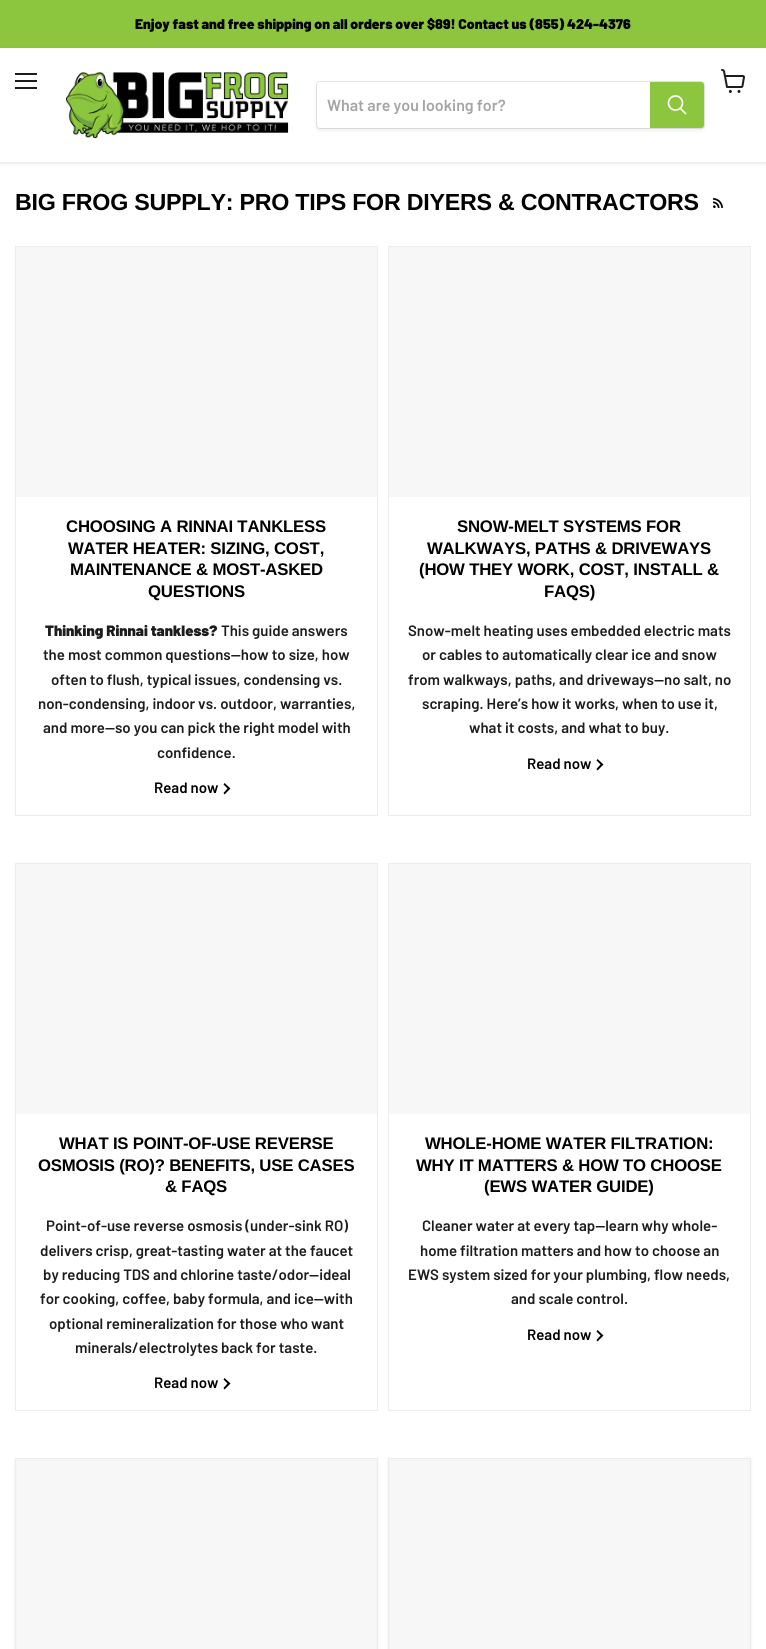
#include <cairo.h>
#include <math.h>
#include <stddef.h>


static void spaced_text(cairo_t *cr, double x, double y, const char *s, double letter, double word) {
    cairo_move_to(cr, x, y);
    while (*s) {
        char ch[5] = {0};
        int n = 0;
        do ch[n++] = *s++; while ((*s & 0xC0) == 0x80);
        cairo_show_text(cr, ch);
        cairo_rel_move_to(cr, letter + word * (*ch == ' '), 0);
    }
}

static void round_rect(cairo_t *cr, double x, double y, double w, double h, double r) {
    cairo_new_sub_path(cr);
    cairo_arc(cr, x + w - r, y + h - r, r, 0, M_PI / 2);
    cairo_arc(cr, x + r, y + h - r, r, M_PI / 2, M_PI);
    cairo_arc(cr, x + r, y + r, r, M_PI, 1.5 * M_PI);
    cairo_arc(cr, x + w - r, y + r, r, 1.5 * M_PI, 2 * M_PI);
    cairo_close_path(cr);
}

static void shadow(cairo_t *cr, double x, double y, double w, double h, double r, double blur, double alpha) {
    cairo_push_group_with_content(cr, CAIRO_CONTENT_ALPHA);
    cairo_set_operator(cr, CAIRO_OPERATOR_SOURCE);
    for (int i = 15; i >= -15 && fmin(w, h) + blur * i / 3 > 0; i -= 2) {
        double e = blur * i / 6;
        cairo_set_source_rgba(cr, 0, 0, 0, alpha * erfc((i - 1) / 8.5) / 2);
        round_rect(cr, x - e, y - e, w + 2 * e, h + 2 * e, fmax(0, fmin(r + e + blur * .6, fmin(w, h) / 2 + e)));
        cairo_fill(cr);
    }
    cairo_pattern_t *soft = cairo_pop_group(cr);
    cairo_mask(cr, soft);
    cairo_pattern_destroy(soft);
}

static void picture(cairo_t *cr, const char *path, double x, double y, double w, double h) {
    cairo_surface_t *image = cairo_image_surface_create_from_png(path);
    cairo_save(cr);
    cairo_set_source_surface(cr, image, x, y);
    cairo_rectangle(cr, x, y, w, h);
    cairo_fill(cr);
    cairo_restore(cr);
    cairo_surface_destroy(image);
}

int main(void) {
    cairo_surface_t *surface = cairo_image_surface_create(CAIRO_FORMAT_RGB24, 766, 1649);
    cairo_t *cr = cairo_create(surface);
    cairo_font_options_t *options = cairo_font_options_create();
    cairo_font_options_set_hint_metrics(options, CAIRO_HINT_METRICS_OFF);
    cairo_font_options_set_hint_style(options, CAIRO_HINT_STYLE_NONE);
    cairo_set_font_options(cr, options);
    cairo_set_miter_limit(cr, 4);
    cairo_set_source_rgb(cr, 1, 1, 1);
    cairo_paint(cr);
    cairo_set_source_rgb(cr, 0.549, 0.776, 0.243);
    cairo_rectangle(cr, 0, 0, 766, 48);
    cairo_fill(cr);
    cairo_select_font_face(cr, "Barlow Black", CAIRO_FONT_SLANT_NORMAL, CAIRO_FONT_WEIGHT_NORMAL);
    cairo_set_font_size(cr, 14.05);
    cairo_set_source_rgb(cr, 0, 0, 0);
    cairo_move_to(cr, 135, 29);
    cairo_show_text(cr, "Enjoy fast and free shipping on all orders over $89! Contact us (855) 424-4376");
    cairo_save(cr);
    cairo_set_fill_rule(cr, CAIRO_FILL_RULE_EVEN_ODD);
    cairo_new_path(cr);
    cairo_move_to(cr, 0, 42);
    cairo_line_to(cr, 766, 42);
    cairo_line_to(cr, 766, 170);
    cairo_line_to(cr, 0, 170);
    cairo_close_path(cr);
    cairo_move_to(cr, 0, 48);
    cairo_line_to(cr, 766, 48);
    cairo_line_to(cr, 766, 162);
    cairo_line_to(cr, 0, 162);
    cairo_close_path(cr);
    cairo_clip(cr);
    cairo_set_source_rgb(cr, 0.502, 0.502, 0.502);
    shadow(cr, 0, 49, 766, 114, 0, 2, 0.25);
    cairo_restore(cr);
    cairo_set_source_rgb(cr, 0.114, 0.114, 0.114);
    cairo_rectangle(cr, 15, 73, 22, 2);
    cairo_fill(cr);
    cairo_rectangle(cr, 15, 80, 22, 2);
    cairo_fill(cr);
    cairo_rectangle(cr, 15, 87, 22, 2);
    cairo_fill(cr);
    picture(cr, "img1.png", 721, 69, 24, 24);
    picture(cr, "img2.png", 66, 72, 223, 67);
    cairo_set_source_rgb(cr, 0.502, 0.502, 0.502);
    shadow(cr, 316, 83, 389, 48, 4, 1.5, 0.11);
    round_rect(cr, 316.5, 81.5, 388, 47, 3.5);
    cairo_set_source_rgba(cr, 0.502, 0.502, 0.502, 0.2);
    cairo_set_line_width(cr, 1);
    cairo_stroke(cr);
    cairo_set_source_rgb(cr, 1, 1, 1);
    cairo_new_path(cr);
    cairo_move_to(cr, 320, 82);
    cairo_line_to(cr, 650, 82);
    cairo_line_to(cr, 650, 128);
    cairo_line_to(cr, 320, 128);
    cairo_curve_to(cr, 318.5, 128, 317, 126.5, 317, 125);
    cairo_line_to(cr, 317, 85);
    cairo_curve_to(cr, 317, 83.5, 318.5, 82, 320, 82);
    cairo_close_path(cr);
    cairo_fill(cr);
    cairo_save(cr);
    cairo_rectangle(cr, 327, 95, 313, 19);
    cairo_clip(cr);
    cairo_select_font_face(cr, "Barlow SemiBold", CAIRO_FONT_SLANT_NORMAL, CAIRO_FONT_WEIGHT_NORMAL);
    cairo_set_font_size(cr, 16);
    cairo_set_source_rgb(cr, 0.647, 0.647, 0.647);
    cairo_move_to(cr, 327, 111);
    cairo_show_text(cr, "What are you looking for?");
    cairo_restore(cr);
    cairo_set_source_rgb(cr, 0.549, 0.776, 0.243);
    cairo_new_path(cr);
    cairo_move_to(cr, 650.5, 82.5);
    cairo_line_to(cr, 701, 82.5);
    cairo_curve_to(cr, 702.5, 82.5, 703.5, 83.5, 703.5, 85);
    cairo_line_to(cr, 703.5, 125);
    cairo_curve_to(cr, 703.5, 126.5, 702.5, 127.5, 701, 127.5);
    cairo_line_to(cr, 650.5, 127.5);
    cairo_close_path(cr);
    cairo_fill_preserve(cr);
    cairo_stroke(cr);
    cairo_new_path(cr);
    cairo_move_to(cr, 685.5, 113.5);
    cairo_line_to(cr, 680.5, 108.5);
    cairo_set_source_rgb(cr, 1, 1, 1);
    cairo_set_line_width(cr, 1.7);
    cairo_set_line_cap(cr, CAIRO_LINE_CAP_ROUND);
    cairo_stroke(cr);
    cairo_arc(cr, 675.5, 103, 7, 0, 2 * M_PI);
    cairo_set_line_cap(cr, CAIRO_LINE_CAP_BUTT);
    cairo_stroke(cr);
    cairo_select_font_face(cr, "Liberation Sans", CAIRO_FONT_SLANT_NORMAL, CAIRO_FONT_WEIGHT_BOLD);
    cairo_set_font_size(cr, 23.25);
    cairo_set_source_rgb(cr, 0, 0, 0);
    spaced_text(cr, 15, 210, "BIG FROG SUPPLY: PRO TIPS FOR DIYERS & CONTRACTORS", -0.25, 0);
    picture(cr, "img3.png", 713, 198, 10, 10);
    cairo_rectangle(cr, 15.5, 246.5, 362, 569);
    cairo_set_source_rgb(cr, 0.922, 0.922, 0.922);
    cairo_set_line_width(cr, 1);
    cairo_stroke(cr);
    cairo_set_source_rgb(cr, 0.965, 0.965, 0.965);
    cairo_rectangle(cr, 16, 247, 361, 250);
    cairo_fill(cr);
    cairo_set_font_size(cr, 16.75);
    cairo_set_source_rgb(cr, 0, 0, 0);
    spaced_text(cr, 66, 532, "CHOOSING A RINNAI TANKLESS", -0.2, 0);
    spaced_text(cr, 68, 554, "WATER HEATER: SIZING, COST,", -0.2, 0);
    spaced_text(cr, 70, 575, "MAINTENANCE & MOST-ASKED", -0.2, 0);
    spaced_text(cr, 148, 597, "QUESTIONS", -0.2, 0);
    cairo_select_font_face(cr, "Barlow Black", CAIRO_FONT_SLANT_NORMAL, CAIRO_FONT_WEIGHT_NORMAL);
    cairo_set_font_size(cr, 15);
    cairo_set_source_rgb(cr, 0.114, 0.114, 0.114);
    cairo_move_to(cr, 45, 636);
    cairo_show_text(cr, "Thinking Rinnai tankless?");
    cairo_select_font_face(cr, "Barlow SemiBold", CAIRO_FONT_SLANT_NORMAL, CAIRO_FONT_WEIGHT_NORMAL);
    cairo_move_to(cr, 221, 636);
    cairo_show_text(cr, "This guide answers");
    cairo_move_to(cr, 43, 660);
    cairo_show_text(cr, "the most common questions—how to size, how");
    cairo_move_to(cr, 51, 685);
    cairo_show_text(cr, "often to flush, typical issues, condensing vs.");
    cairo_move_to(cr, 38, 709);
    cairo_show_text(cr, "non-condensing, indoor vs. outdoor, warranties,");
    cairo_move_to(cr, 43, 733);
    cairo_show_text(cr, "and more—so you can pick the right model with");
    cairo_move_to(cr, 157, 758);
    cairo_show_text(cr, "confidence.");
    cairo_set_source_rgb(cr, 0, 0, 0);
    cairo_move_to(cr, 154, 793);
    cairo_show_text(cr, "Read now");
    cairo_set_fill_rule(cr, CAIRO_FILL_RULE_EVEN_ODD);
    cairo_new_path(cr);
    cairo_move_to(cr, 227.5, 788.5);
    cairo_line_to(cr, 223.5, 784.5);
    cairo_line_to(cr, 224.5, 783);
    cairo_line_to(cr, 230.5, 788.5);
    cairo_line_to(cr, 224.5, 794.5);
    cairo_line_to(cr, 223.5, 793);
    cairo_close_path(cr);
    cairo_fill(cr);
    cairo_rectangle(cr, 388.5, 246.5, 362, 569);
    cairo_set_source_rgb(cr, 0.922, 0.922, 0.922);
    cairo_stroke(cr);
    cairo_set_source_rgb(cr, 0.965, 0.965, 0.965);
    cairo_rectangle(cr, 389, 247, 361, 250);
    cairo_fill(cr);
    cairo_select_font_face(cr, "Liberation Sans", CAIRO_FONT_SLANT_NORMAL, CAIRO_FONT_WEIGHT_BOLD);
    cairo_set_font_size(cr, 16.75);
    cairo_set_source_rgb(cr, 0, 0, 0);
    spaced_text(cr, 457, 532, "SNOW-MELT SYSTEMS FOR", -0.2, 0);
    spaced_text(cr, 427, 554, "WALKWAYS, PATHS & DRIVEWAYS", -0.2, 0);
    spaced_text(cr, 419, 575, "(HOW THEY WORK, COST, INSTALL &", -0.2, 0);
    spaced_text(cr, 544, 597, "FAQS)", -0.2, 0);
    cairo_select_font_face(cr, "Barlow SemiBold", CAIRO_FONT_SLANT_NORMAL, CAIRO_FONT_WEIGHT_NORMAL);
    cairo_set_font_size(cr, 15);
    cairo_set_source_rgb(cr, 0.114, 0.114, 0.114);
    cairo_move_to(cr, 408, 636);
    cairo_show_text(cr, "Snow-melt heating uses embedded electric mats");
    cairo_move_to(cr, 422, 660);
    cairo_show_text(cr, "or cables to automatically clear ice and snow");
    cairo_move_to(cr, 408, 685);
    cairo_show_text(cr, "from walkways, paths, and driveways—no salt, no");
    cairo_move_to(cr, 422, 709);
    cairo_show_text(cr, "scraping. Here’s how it works, when to use it,");
    cairo_move_to(cr, 469, 733);
    cairo_show_text(cr, "what it costs, and what to buy.");
    cairo_set_source_rgb(cr, 0, 0, 0);
    cairo_move_to(cr, 527, 769);
    cairo_show_text(cr, "Read now");
    cairo_new_path(cr);
    cairo_move_to(cr, 600.5, 764.5);
    cairo_line_to(cr, 596.5, 760.5);
    cairo_line_to(cr, 597.5, 759);
    cairo_line_to(cr, 603.5, 764.5);
    cairo_line_to(cr, 597.5, 770.5);
    cairo_line_to(cr, 596.5, 769);
    cairo_close_path(cr);
    cairo_fill(cr);
    cairo_rectangle(cr, 15.5, 863.5, 362, 547);
    cairo_set_source_rgb(cr, 0.922, 0.922, 0.922);
    cairo_stroke(cr);
    cairo_set_source_rgb(cr, 0.965, 0.965, 0.965);
    cairo_rectangle(cr, 16, 864, 361, 250);
    cairo_fill(cr);
    cairo_select_font_face(cr, "Liberation Sans", CAIRO_FONT_SLANT_NORMAL, CAIRO_FONT_WEIGHT_BOLD);
    cairo_set_font_size(cr, 16.75);
    cairo_set_source_rgb(cr, 0, 0, 0);
    spaced_text(cr, 59, 1149, "WHAT IS POINT-OF-USE REVERSE", -0.2, 0);
    spaced_text(cr, 38, 1171, "OSMOSIS (RO)? BENEFITS, USE CASES", -0.2, 0);
    spaced_text(cr, 165, 1192, "& FAQS", -0.2, 0);
    cairo_select_font_face(cr, "Barlow SemiBold", CAIRO_FONT_SLANT_NORMAL, CAIRO_FONT_WEIGHT_NORMAL);
    cairo_set_font_size(cr, 15);
    cairo_set_source_rgb(cr, 0.114, 0.114, 0.114);
    cairo_move_to(cr, 46, 1231);
    cairo_show_text(cr, "Point-of-use reverse osmosis (under-sink RO)");
    cairo_move_to(cr, 40, 1256);
    cairo_show_text(cr, "delivers crisp, great-tasting water at the faucet");
    cairo_move_to(cr, 43, 1280);
    cairo_show_text(cr, "by reducing TDS and chlorine taste/odor—ideal");
    cairo_move_to(cr, 40, 1304);
    cairo_show_text(cr, "for cooking, coffee, baby formula, and ice—with");
    cairo_move_to(cr, 49, 1329);
    cairo_show_text(cr, "optional remineralization for those who want");
    cairo_move_to(cr, 75, 1353);
    cairo_show_text(cr, "minerals/electrolytes back for taste.");
    cairo_set_source_rgb(cr, 0, 0, 0);
    cairo_move_to(cr, 154, 1388);
    cairo_show_text(cr, "Read now");
    cairo_new_path(cr);
    cairo_move_to(cr, 227.5, 1383.5);
    cairo_line_to(cr, 223.5, 1379.5);
    cairo_line_to(cr, 224.5, 1378);
    cairo_line_to(cr, 230.5, 1383.5);
    cairo_line_to(cr, 224.5, 1389.5);
    cairo_line_to(cr, 223.5, 1388);
    cairo_close_path(cr);
    cairo_fill(cr);
    cairo_rectangle(cr, 388.5, 863.5, 362, 547);
    cairo_set_source_rgb(cr, 0.922, 0.922, 0.922);
    cairo_stroke(cr);
    cairo_set_source_rgb(cr, 0.965, 0.965, 0.965);
    cairo_rectangle(cr, 389, 864, 361, 250);
    cairo_fill(cr);
    cairo_select_font_face(cr, "Liberation Sans", CAIRO_FONT_SLANT_NORMAL, CAIRO_FONT_WEIGHT_BOLD);
    cairo_set_font_size(cr, 16.75);
    cairo_set_source_rgb(cr, 0, 0, 0);
    spaced_text(cr, 425, 1149, "WHOLE-HOME WATER FILTRATION:", -0.2, 0);
    spaced_text(cr, 416, 1171, "WHY IT MATTERS & HOW TO CHOOSE", -0.2, 0);
    spaced_text(cr, 484, 1192, "(EWS WATER GUIDE)", -0.2, 0);
    cairo_select_font_face(cr, "Barlow SemiBold", CAIRO_FONT_SLANT_NORMAL, CAIRO_FONT_WEIGHT_NORMAL);
    cairo_set_font_size(cr, 15);
    cairo_set_source_rgb(cr, 0.114, 0.114, 0.114);
    cairo_move_to(cr, 422, 1231);
    cairo_show_text(cr, "Cleaner water at every tap—learn why whole-");
    cairo_move_to(cr, 420, 1256);
    cairo_show_text(cr, "home filtration matters and how to choose an");
    cairo_move_to(cr, 408, 1280);
    cairo_show_text(cr, "EWS system sized for your plumbing, flow needs,");
    cairo_move_to(cr, 511, 1304);
    cairo_show_text(cr, "and scale control.");
    cairo_set_source_rgb(cr, 0, 0, 0);
    cairo_move_to(cr, 527, 1340);
    cairo_show_text(cr, "Read now");
    cairo_new_path(cr);
    cairo_move_to(cr, 600.5, 1335.5);
    cairo_line_to(cr, 596.5, 1331.5);
    cairo_line_to(cr, 597.5, 1330);
    cairo_line_to(cr, 603.5, 1335.5);
    cairo_line_to(cr, 597.5, 1341.5);
    cairo_line_to(cr, 596.5, 1340);
    cairo_close_path(cr);
    cairo_fill(cr);
    cairo_set_source_rgb(cr, 0.502, 0.502, 0.502);
    shadow(cr, 15, 1459, 363, 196, 0, 2, 0.11);
    cairo_rectangle(cr, 15.5, 1458.5, 362, 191);
    cairo_set_source_rgb(cr, 0.922, 0.922, 0.922);
    cairo_stroke(cr);
    cairo_set_source_rgb(cr, 0.965, 0.965, 0.965);
    cairo_rectangle(cr, 17, 1461, 359, 188);
    cairo_fill(cr);
    cairo_set_source_rgb(cr, 0.502, 0.502, 0.502);
    shadow(cr, 388, 1459, 363, 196, 0, 2, 0.11);
    cairo_rectangle(cr, 388.5, 1458.5, 362, 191);
    cairo_set_source_rgb(cr, 0.922, 0.922, 0.922);
    cairo_stroke(cr);
    cairo_set_source_rgb(cr, 0.965, 0.965, 0.965);
    cairo_rectangle(cr, 390, 1461, 359, 188);
    cairo_fill(cr);
    cairo_surface_write_to_png(surface, "page.png");
    cairo_font_options_destroy(options);
    cairo_destroy(cr);
    cairo_surface_destroy(surface);
    return 0;
}
